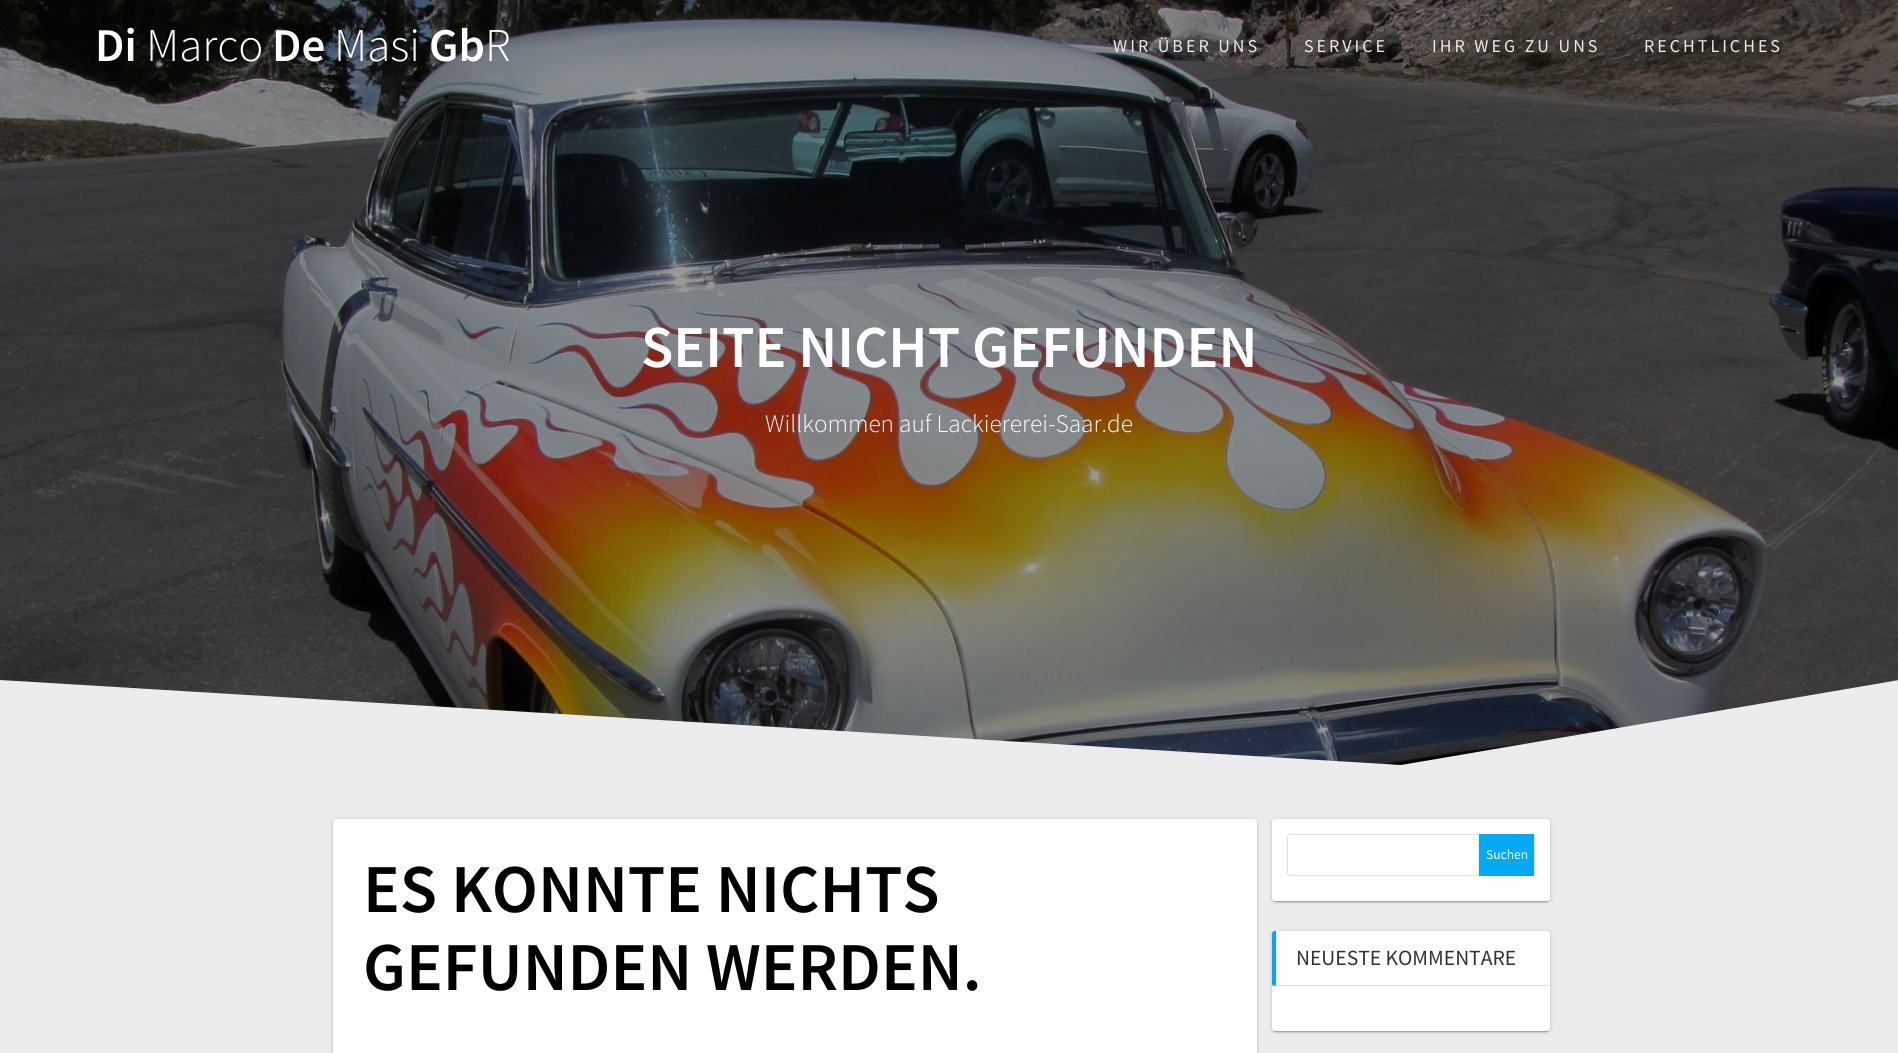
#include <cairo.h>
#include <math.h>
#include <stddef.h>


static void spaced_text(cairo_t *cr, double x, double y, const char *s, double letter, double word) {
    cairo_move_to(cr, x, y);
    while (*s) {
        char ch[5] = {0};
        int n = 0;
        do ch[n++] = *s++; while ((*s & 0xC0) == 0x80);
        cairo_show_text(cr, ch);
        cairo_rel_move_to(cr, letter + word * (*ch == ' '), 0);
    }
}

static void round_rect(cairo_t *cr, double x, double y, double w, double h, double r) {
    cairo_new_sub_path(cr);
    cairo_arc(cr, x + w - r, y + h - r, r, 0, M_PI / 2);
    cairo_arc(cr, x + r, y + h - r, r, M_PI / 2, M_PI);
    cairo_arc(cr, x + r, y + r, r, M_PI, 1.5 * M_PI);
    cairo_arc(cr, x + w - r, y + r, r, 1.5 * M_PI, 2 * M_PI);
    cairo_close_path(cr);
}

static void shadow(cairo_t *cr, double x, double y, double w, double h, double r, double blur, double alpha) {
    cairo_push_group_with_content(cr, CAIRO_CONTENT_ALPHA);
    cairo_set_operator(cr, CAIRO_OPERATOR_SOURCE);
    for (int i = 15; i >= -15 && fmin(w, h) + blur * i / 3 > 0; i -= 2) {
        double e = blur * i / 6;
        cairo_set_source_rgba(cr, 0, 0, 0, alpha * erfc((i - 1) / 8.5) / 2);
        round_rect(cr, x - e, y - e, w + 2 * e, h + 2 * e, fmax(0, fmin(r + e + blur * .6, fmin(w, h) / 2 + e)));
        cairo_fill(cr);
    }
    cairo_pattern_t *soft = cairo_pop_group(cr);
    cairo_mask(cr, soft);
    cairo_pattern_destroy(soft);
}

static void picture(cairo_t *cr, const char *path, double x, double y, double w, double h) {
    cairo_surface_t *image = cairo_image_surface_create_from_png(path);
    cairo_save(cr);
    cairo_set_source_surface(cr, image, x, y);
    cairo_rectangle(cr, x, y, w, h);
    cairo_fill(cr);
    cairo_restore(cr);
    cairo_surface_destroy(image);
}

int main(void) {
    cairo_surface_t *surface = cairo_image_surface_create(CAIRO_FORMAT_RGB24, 1898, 1053);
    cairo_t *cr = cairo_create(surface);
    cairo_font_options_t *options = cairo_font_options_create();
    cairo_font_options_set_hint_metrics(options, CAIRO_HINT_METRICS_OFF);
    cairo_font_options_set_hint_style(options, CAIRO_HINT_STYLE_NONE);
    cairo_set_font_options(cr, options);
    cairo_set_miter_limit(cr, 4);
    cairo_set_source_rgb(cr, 0.922, 0.922, 0.922);
    cairo_paint(cr);
    picture(cr, "img1.png", 0, 0, 1898, 765);
    cairo_select_font_face(cr, "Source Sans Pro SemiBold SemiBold", CAIRO_FONT_SLANT_NORMAL, CAIRO_FONT_WEIGHT_NORMAL);
    cairo_set_font_size(cr, 47);
    cairo_set_source_rgb(cr, 1, 1, 1);
    cairo_move_to(cr, 95, 61);
    cairo_show_text(cr, "Di");
    cairo_select_font_face(cr, "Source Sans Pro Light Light", CAIRO_FONT_SLANT_NORMAL, CAIRO_FONT_WEIGHT_NORMAL);
    cairo_move_to(cr, 146, 61);
    cairo_show_text(cr, "Marco");
    cairo_select_font_face(cr, "Source Sans Pro SemiBold SemiBold", CAIRO_FONT_SLANT_NORMAL, CAIRO_FONT_WEIGHT_NORMAL);
    cairo_move_to(cr, 272, 61);
    cairo_show_text(cr, "De");
    cairo_select_font_face(cr, "Source Sans Pro Light Light", CAIRO_FONT_SLANT_NORMAL, CAIRO_FONT_WEIGHT_NORMAL);
    cairo_move_to(cr, 334, 61);
    cairo_show_text(cr, "Masi");
    cairo_select_font_face(cr, "Source Sans Pro SemiBold SemiBold", CAIRO_FONT_SLANT_NORMAL, CAIRO_FONT_WEIGHT_NORMAL);
    cairo_move_to(cr, 429, 61);
    cairo_show_text(cr, "Gb");
    cairo_select_font_face(cr, "Source Sans Pro Light Light", CAIRO_FONT_SLANT_NORMAL, CAIRO_FONT_WEIGHT_NORMAL);
    cairo_move_to(cr, 485, 61);
    cairo_show_text(cr, "R");
    cairo_select_font_face(cr, "Source Sans Pro", CAIRO_FONT_SLANT_NORMAL, CAIRO_FONT_WEIGHT_NORMAL);
    cairo_set_font_size(cr, 18);
    cairo_set_source_rgb(cr, 0.929, 0.929, 0.929);
    spaced_text(cr, 1113, 52, "WIR ÜBER UNS", 3, 0);
    spaced_text(cr, 1304, 52, "SERVICE", 3, 0);
    spaced_text(cr, 1432, 52, "IHR WEG ZU UNS", 3, 0);
    spaced_text(cr, 1644, 52, "RECHTLICHES", 3, 0);
    cairo_select_font_face(cr, "Source Sans Pro SemiBold SemiBold", CAIRO_FONT_SLANT_NORMAL, CAIRO_FONT_WEIGHT_NORMAL);
    cairo_set_font_size(cr, 59.4);
    cairo_set_source_rgb(cr, 1, 1, 1);
    cairo_move_to(cr, 641, 367);
    cairo_show_text(cr, "SEITE NICHT GEFUNDEN");
    cairo_select_font_face(cr, "Source Sans Pro Light Light", CAIRO_FONT_SLANT_NORMAL, CAIRO_FONT_WEIGHT_NORMAL);
    cairo_set_font_size(cr, 25.25);
    cairo_move_to(cr, 765, 432);
    cairo_show_text(cr, "Willkommen auf Lackiererei-Saar.de");
    cairo_set_source_rgb(cr, 0.922, 0.922, 0.922);
    cairo_new_path(cr);
    cairo_move_to(cr, 1401, 765);
    cairo_line_to(cr, 0, 680);
    cairo_line_to(cr, 0, 770);
    cairo_line_to(cr, 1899, 770);
    cairo_line_to(cr, 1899, 680);
    cairo_close_path(cr);
    cairo_fill(cr);
    cairo_set_source_rgb(cr, 0, 0, 0);
    shadow(cr, 333, 820, 924, 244, 3, 2.5, 0.12);
    shadow(cr, 333, 820, 924, 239, 3, 1, 0.14);
    cairo_set_source_rgb(cr, 1, 1, 1);
    round_rect(cr, 333, 819, 924, 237, 3);
    cairo_fill(cr);
    cairo_select_font_face(cr, "Source Sans Pro SemiBold SemiBold", CAIRO_FONT_SLANT_NORMAL, CAIRO_FONT_WEIGHT_NORMAL);
    cairo_set_font_size(cr, 68.5);
    cairo_set_source_rgb(cr, 0, 0, 0);
    cairo_move_to(cr, 363, 912);
    cairo_show_text(cr, "ES KONNTE NICHTS");
    cairo_move_to(cr, 363, 990);
    cairo_show_text(cr, "GEFUNDEN WERDEN.");
    cairo_set_source_rgb(cr, 0, 0, 0);
    shadow(cr, 1272, 820, 278, 82, 3, 2.5, 0.12);
    shadow(cr, 1274, 824, 274, 78, 1, 0.5, 0.2);
    shadow(cr, 1272, 820, 278, 82, 3, 1, 0.14);
    cairo_set_source_rgb(cr, 1, 1, 1);
    round_rect(cr, 1272, 819, 278, 82, 3);
    cairo_fill(cr);
    round_rect(cr, 1287.5, 834.5, 247, 41, 2.5);
    cairo_set_source_rgb(cr, 0.878, 0.878, 0.878);
    cairo_set_line_width(cr, 1);
    cairo_stroke(cr);
    cairo_set_source_rgb(cr, 0.012, 0.663, 0.957);
    cairo_rectangle(cr, 1479, 834, 55, 42);
    cairo_fill(cr);
    cairo_select_font_face(cr, "Source Sans Pro", CAIRO_FONT_SLANT_NORMAL, CAIRO_FONT_WEIGHT_NORMAL);
    cairo_set_font_size(cr, 13.5);
    cairo_set_source_rgb(cr, 1, 1, 1);
    cairo_move_to(cr, 1486, 859);
    cairo_show_text(cr, "Suchen");
    cairo_set_source_rgb(cr, 0, 0, 0);
    shadow(cr, 1272, 932, 278, 100, 3, 2.5, 0.12);
    shadow(cr, 1274, 936, 274, 96, 1, 0.5, 0.2);
    shadow(cr, 1272, 932, 278, 100, 3, 1, 0.14);
    cairo_set_source_rgb(cr, 1, 1, 1);
    round_rect(cr, 1272, 931, 278, 100, 3);
    cairo_fill(cr);
    cairo_set_source_rgb(cr, 0.878, 0.878, 0.878);
    cairo_new_path(cr);
    cairo_move_to(cr, 1275, 986);
    cairo_line_to(cr, 1547, 986);
    cairo_curve_to(cr, 1549, 986, 1550, 985, 1550, 983);
    cairo_curve_to(cr, 1550, 984, 1549, 985, 1547, 985);
    cairo_line_to(cr, 1276, 985);
    cairo_line_to(cr, 1273, 986);
    cairo_close_path(cr);
    cairo_fill(cr);
    cairo_set_source_rgb(cr, 0.012, 0.659, 0.957);
    cairo_new_path(cr);
    cairo_move_to(cr, 1275, 931);
    cairo_line_to(cr, 1276, 931);
    cairo_line_to(cr, 1276, 985);
    cairo_line_to(cr, 1273, 986);
    cairo_curve_to(cr, 1272, 985, 1272, 984, 1272, 983);
    cairo_line_to(cr, 1272, 934);
    cairo_curve_to(cr, 1272, 932, 1273, 931, 1275, 931);
    cairo_close_path(cr);
    cairo_fill(cr);
    cairo_set_font_size(cr, 21.6);
    cairo_set_source_rgb(cr, 0.2, 0.2, 0.2);
    cairo_move_to(cr, 1296, 965);
    cairo_show_text(cr, "NEUESTE KOMMENTARE");
    cairo_surface_write_to_png(surface, "page.png");
    cairo_font_options_destroy(options);
    cairo_destroy(cr);
    cairo_surface_destroy(surface);
    return 0;
}
